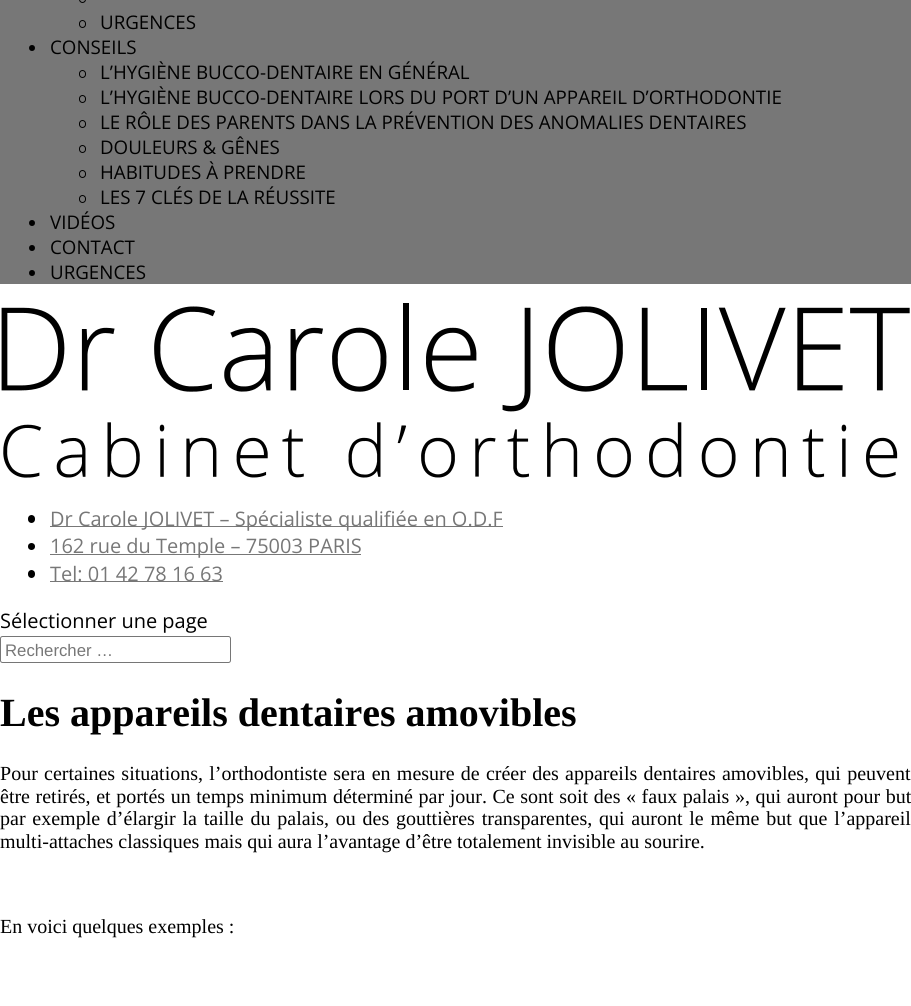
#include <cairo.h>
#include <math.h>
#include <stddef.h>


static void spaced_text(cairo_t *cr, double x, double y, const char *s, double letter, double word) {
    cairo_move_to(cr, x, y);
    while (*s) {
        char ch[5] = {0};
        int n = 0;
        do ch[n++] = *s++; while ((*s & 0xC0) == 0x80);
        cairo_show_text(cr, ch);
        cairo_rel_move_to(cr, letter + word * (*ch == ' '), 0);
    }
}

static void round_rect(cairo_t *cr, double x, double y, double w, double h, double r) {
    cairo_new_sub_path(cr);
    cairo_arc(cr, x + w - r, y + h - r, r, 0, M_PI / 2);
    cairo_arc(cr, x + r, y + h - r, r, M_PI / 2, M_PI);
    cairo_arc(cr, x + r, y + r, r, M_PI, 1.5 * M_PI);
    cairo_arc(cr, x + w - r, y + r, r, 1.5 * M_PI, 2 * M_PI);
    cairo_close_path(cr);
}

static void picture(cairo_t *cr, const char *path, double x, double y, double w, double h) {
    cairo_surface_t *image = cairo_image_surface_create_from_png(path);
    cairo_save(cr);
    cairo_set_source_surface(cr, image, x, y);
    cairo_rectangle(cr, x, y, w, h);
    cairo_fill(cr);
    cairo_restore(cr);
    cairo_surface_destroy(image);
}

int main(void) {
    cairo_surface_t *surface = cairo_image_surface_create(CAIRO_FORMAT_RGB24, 911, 1006);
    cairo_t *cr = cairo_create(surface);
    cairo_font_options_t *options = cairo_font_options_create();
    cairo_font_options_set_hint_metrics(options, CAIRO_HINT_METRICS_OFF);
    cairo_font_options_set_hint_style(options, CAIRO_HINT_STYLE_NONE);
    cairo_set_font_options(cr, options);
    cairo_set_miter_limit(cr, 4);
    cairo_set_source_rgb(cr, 1, 1, 1);
    cairo_paint(cr);
    cairo_set_source_rgb(cr, 0.467, 0.467, 0.467);
    cairo_rectangle(cr, 0, 0, 911, 284);
    cairo_fill(cr);
    round_rect(cr, 79.5, -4.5, 6, 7, 3);
    cairo_set_source_rgb(cr, 0, 0, 0);
    cairo_set_line_width(cr, 1);
    cairo_stroke(cr);
    round_rect(cr, 79.5, 20.5, 6, 7, 3);
    cairo_stroke(cr);
    cairo_select_font_face(cr, "Open Sans", CAIRO_FONT_SLANT_NORMAL, CAIRO_FONT_WEIGHT_NORMAL);
    cairo_set_font_size(cr, 18.75);
    cairo_move_to(cr, 100, 29);
    cairo_show_text(cr, "URGENCES");
    cairo_new_path(cr);
    cairo_arc(cr, 32, 48, 3, 0, 2 * M_PI);
    cairo_fill(cr);
    cairo_move_to(cr, 50, 54);
    cairo_show_text(cr, "CONSEILS");
    round_rect(cr, 79.5, 70.5, 6, 7, 3);
    cairo_stroke(cr);
    cairo_move_to(cr, 100, 79);
    cairo_show_text(cr, "L’HYGIÈNE BUCCO-DENTAIRE EN GÉNÉRAL");
    round_rect(cr, 79.5, 95.5, 6, 7, 3);
    cairo_stroke(cr);
    cairo_move_to(cr, 100, 104);
    cairo_show_text(cr, "L’HYGIÈNE BUCCO-DENTAIRE LORS DU PORT D’UN APPAREIL D’ORTHODONTIE");
    round_rect(cr, 79.5, 120.5, 6, 7, 3);
    cairo_stroke(cr);
    cairo_move_to(cr, 100, 129);
    cairo_show_text(cr, "LE RÔLE DES PARENTS DANS LA PRÉVENTION DES ANOMALIES DENTAIRES");
    round_rect(cr, 79.5, 145.5, 6, 7, 3);
    cairo_stroke(cr);
    cairo_move_to(cr, 100, 154);
    cairo_show_text(cr, "DOULEURS & GÊNES");
    round_rect(cr, 79.5, 170.5, 6, 7, 3);
    cairo_stroke(cr);
    cairo_move_to(cr, 100, 179);
    cairo_show_text(cr, "HABITUDES À PRENDRE");
    round_rect(cr, 79.5, 195.5, 6, 7, 3);
    cairo_stroke(cr);
    cairo_move_to(cr, 100, 204);
    cairo_show_text(cr, "LES 7 CLÉS DE LA RÉUSSITE");
    cairo_new_path(cr);
    cairo_arc(cr, 32, 223, 3, 0, 2 * M_PI);
    cairo_fill(cr);
    cairo_move_to(cr, 50, 229);
    cairo_show_text(cr, "VIDÉOS");
    cairo_new_path(cr);
    cairo_arc(cr, 32, 248, 3, 0, 2 * M_PI);
    cairo_fill(cr);
    cairo_move_to(cr, 50, 254);
    cairo_show_text(cr, "CONTACT");
    cairo_new_path(cr);
    cairo_arc(cr, 32, 273, 3, 0, 2 * M_PI);
    cairo_fill(cr);
    cairo_move_to(cr, 50, 279);
    cairo_show_text(cr, "URGENCES");
    picture(cr, "img1.png", 1, 303, 909, 175);
    round_rect(cr, 28, 515, 7, 8, 3.5);
    cairo_fill(cr);
    cairo_set_source_rgb(cr, 0.467, 0.467, 0.467);
    cairo_rectangle(cr, 50, 526, 453, 1);
    cairo_fill(cr);
    cairo_set_font_size(cr, 20);
    cairo_move_to(cr, 50, 526);
    cairo_show_text(cr, "Dr Carole JOLIVET – Spécialiste qualifiée en O.D.F");
    cairo_set_source_rgb(cr, 0, 0, 0);
    cairo_new_path(cr);
    cairo_arc(cr, 31.5, 546.5, 3.5, 0, 2 * M_PI);
    cairo_fill(cr);
    cairo_set_source_rgb(cr, 0.467, 0.467, 0.467);
    cairo_rectangle(cr, 50, 554, 311, 1);
    cairo_fill(cr);
    cairo_move_to(cr, 50, 553);
    cairo_show_text(cr, "162 rue du Temple – 75003 PARIS");
    cairo_set_source_rgb(cr, 0, 0, 0);
    round_rect(cr, 28, 570, 7, 8, 3.5);
    cairo_fill(cr);
    cairo_set_source_rgb(cr, 0.467, 0.467, 0.467);
    cairo_rectangle(cr, 50, 581, 173, 1);
    cairo_fill(cr);
    cairo_move_to(cr, 50, 581);
    cairo_show_text(cr, "Tel: 01 42 78 16 63");
    cairo_set_source_rgb(cr, 0, 0, 0);
    cairo_move_to(cr, 0, 628);
    cairo_show_text(cr, "Sélectionner une page");
    round_rect(cr, 0.5, 636.5, 230, 26, 2);
    cairo_set_source_rgb(cr, 0.463, 0.463, 0.463);
    cairo_stroke(cr);
    cairo_select_font_face(cr, "Liberation Sans", CAIRO_FONT_SLANT_NORMAL, CAIRO_FONT_WEIGHT_NORMAL);
    cairo_set_font_size(cr, 16.75);
    cairo_set_source_rgb(cr, 0.467, 0.467, 0.467);
    cairo_move_to(cr, 5, 656);
    cairo_show_text(cr, "Rechercher …");
    cairo_select_font_face(cr, "Liberation Serif", CAIRO_FONT_SLANT_NORMAL, CAIRO_FONT_WEIGHT_BOLD);
    cairo_set_font_size(cr, 40);
    cairo_set_source_rgb(cr, 0, 0, 0);
    cairo_move_to(cr, 0, 726);
    cairo_show_text(cr, "Les appareils dentaires amovibles");
    cairo_select_font_face(cr, "Liberation Serif", CAIRO_FONT_SLANT_NORMAL, CAIRO_FONT_WEIGHT_NORMAL);
    cairo_set_font_size(cr, 20);
    spaced_text(cr, 0, 780, "Pour certaines situations, l’orthodontiste sera en mesure de créer des appareils dentaires amovibles, qui peuvent", 0, 1.25);
    spaced_text(cr, 0, 803, "être retirés, et portés un temps minimum déterminé par jour. Ce sont soit des « faux palais », qui auront pour but", 0, 0.6);
    spaced_text(cr, 0, 825, "par exemple d’élargir la taille du palais, ou des gouttières transparentes, qui auront le même but que l’appareil", 0, 1.8);
    cairo_move_to(cr, 0, 848);
    cairo_show_text(cr, "multi-attaches classiques mais qui aura l’avantage d’être totalement invisible au sourire.");
    cairo_move_to(cr, 0, 933);
    cairo_show_text(cr, "En voici quelques exemples :");
    cairo_surface_write_to_png(surface, "page.png");
    cairo_font_options_destroy(options);
    cairo_destroy(cr);
    cairo_surface_destroy(surface);
    return 0;
}
